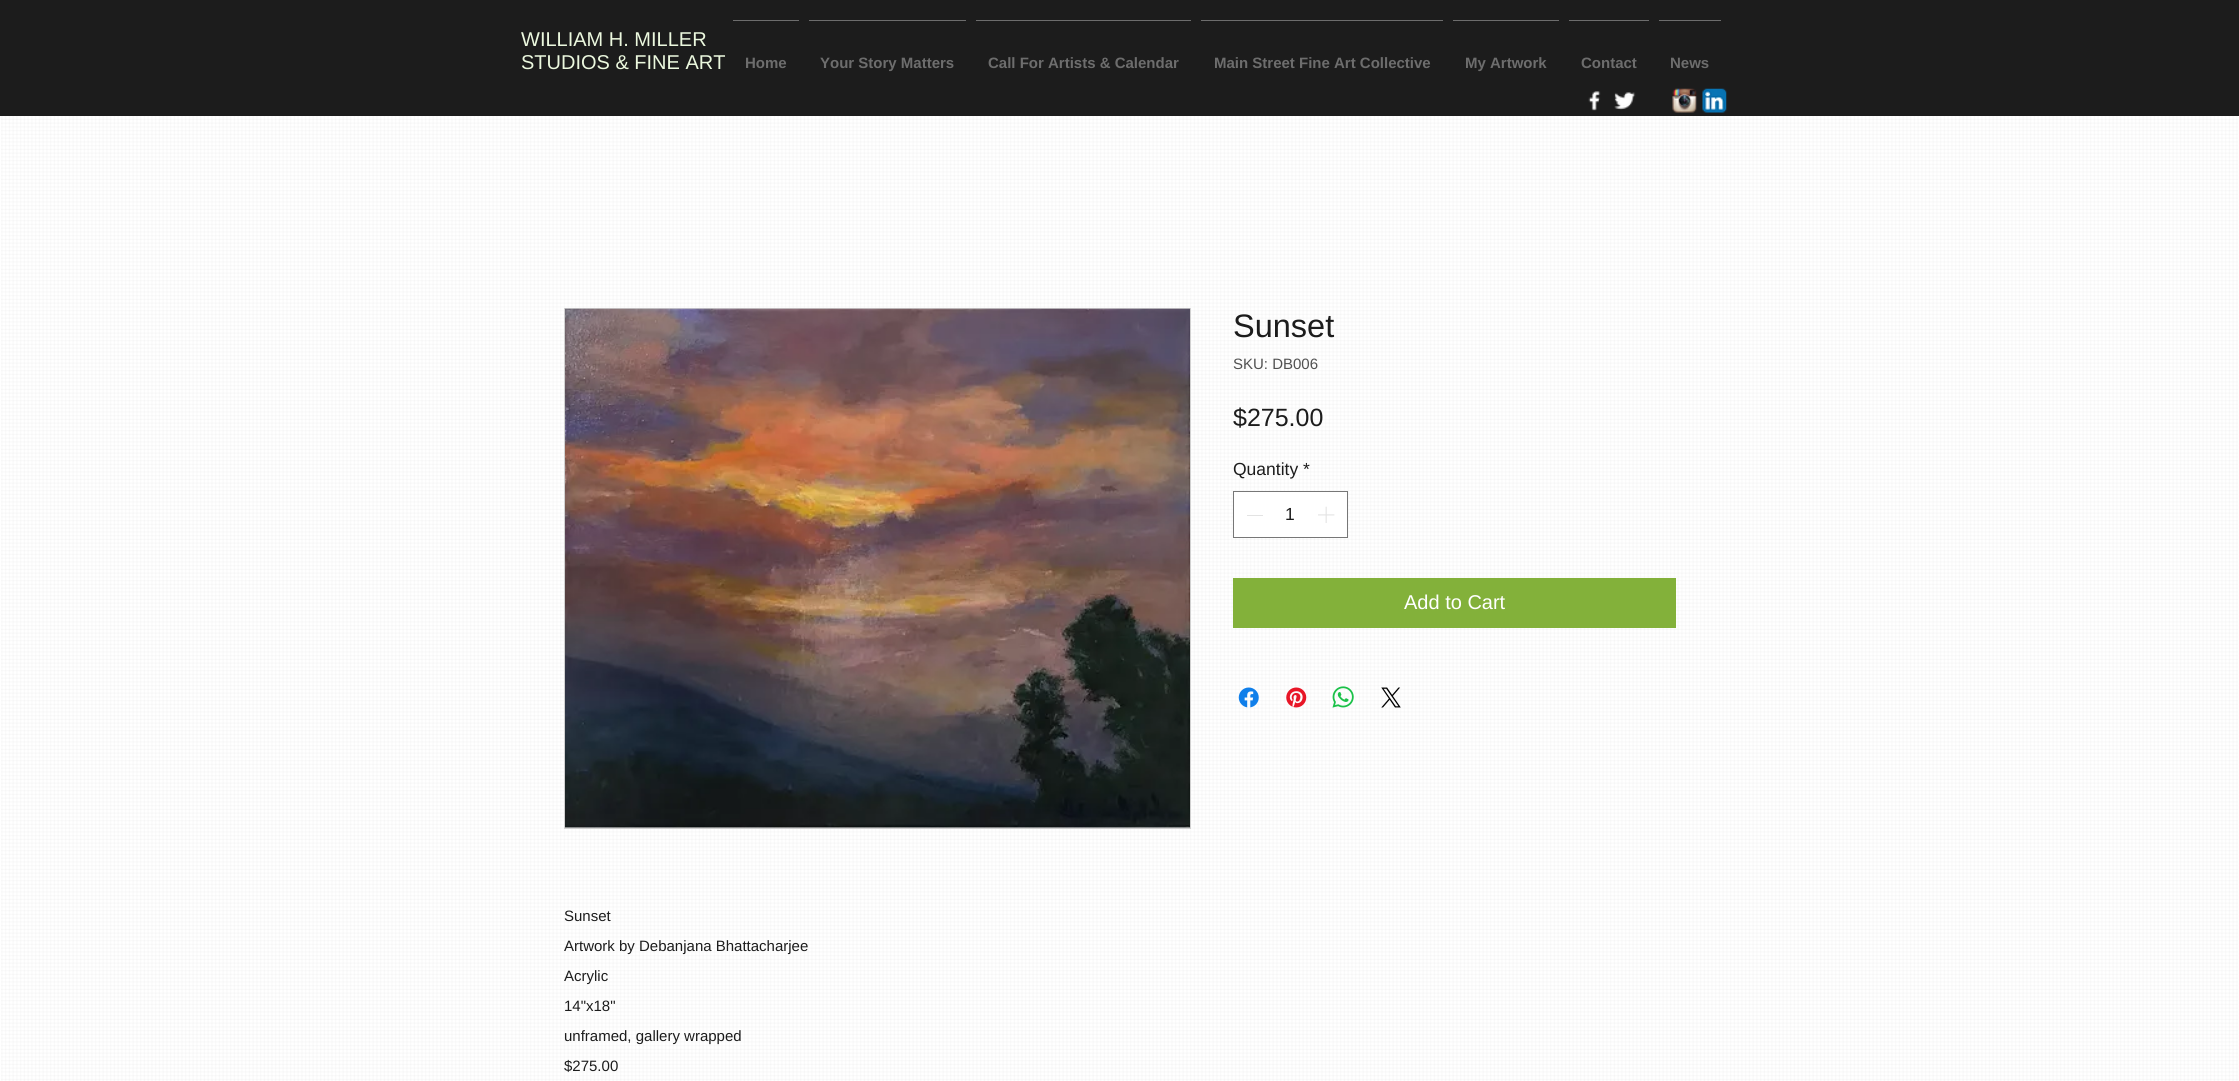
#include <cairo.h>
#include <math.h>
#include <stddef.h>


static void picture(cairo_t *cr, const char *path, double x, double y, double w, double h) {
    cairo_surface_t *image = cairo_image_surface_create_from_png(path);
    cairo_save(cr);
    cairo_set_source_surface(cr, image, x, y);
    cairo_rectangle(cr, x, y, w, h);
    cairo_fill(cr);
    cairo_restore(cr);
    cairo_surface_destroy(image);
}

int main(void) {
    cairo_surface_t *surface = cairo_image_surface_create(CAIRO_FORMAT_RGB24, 2239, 1081);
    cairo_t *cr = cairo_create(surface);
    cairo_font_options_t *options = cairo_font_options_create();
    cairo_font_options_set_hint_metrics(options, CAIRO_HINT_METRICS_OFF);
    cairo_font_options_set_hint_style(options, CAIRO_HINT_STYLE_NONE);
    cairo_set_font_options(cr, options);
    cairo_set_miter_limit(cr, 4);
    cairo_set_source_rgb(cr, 1, 1, 1);
    cairo_paint(cr);
    cairo_set_source_rgb(cr, 0.11, 0.11, 0.11);
    cairo_rectangle(cr, 0, 0, 2239, 116);
    cairo_fill(cr);
    cairo_select_font_face(cr, "Liberation Sans", CAIRO_FONT_SLANT_NORMAL, CAIRO_FONT_WEIGHT_NORMAL);
    cairo_set_font_size(cr, 20);
    cairo_set_source_rgb(cr, 0.918, 0.969, 0.871);
    cairo_move_to(cr, 521, 46);
    cairo_show_text(cr, "WILLIAM H. MILLER");
    cairo_move_to(cr, 521, 69);
    cairo_show_text(cr, "STUDIOS & FINE ART");
    cairo_set_source_rgb(cr, 0.427, 0.427, 0.427);
    cairo_rectangle(cr, 733, 20, 66, 1);
    cairo_fill(cr);
    cairo_select_font_face(cr, "Liberation Sans", CAIRO_FONT_SLANT_NORMAL, CAIRO_FONT_WEIGHT_BOLD);
    cairo_set_font_size(cr, 15);
    cairo_move_to(cr, 745, 68);
    cairo_show_text(cr, "Home");
    cairo_rectangle(cr, 809, 20, 157, 1);
    cairo_fill(cr);
    cairo_move_to(cr, 820, 68);
    cairo_show_text(cr, "Your Story Matters");
    cairo_rectangle(cr, 976, 20, 215, 1);
    cairo_fill(cr);
    cairo_move_to(cr, 988, 68);
    cairo_show_text(cr, "Call For Artists & Calendar");
    cairo_rectangle(cr, 1201, 20, 242, 1);
    cairo_fill(cr);
    cairo_move_to(cr, 1214, 68);
    cairo_show_text(cr, "Main Street Fine Art Collective");
    cairo_rectangle(cr, 1453, 20, 106, 1);
    cairo_fill(cr);
    cairo_move_to(cr, 1465, 68);
    cairo_show_text(cr, "My Artwork");
    cairo_rectangle(cr, 1569, 20, 80, 1);
    cairo_fill(cr);
    cairo_move_to(cr, 1581, 68);
    cairo_show_text(cr, "Contact");
    cairo_rectangle(cr, 1659, 20, 62, 1);
    cairo_fill(cr);
    cairo_move_to(cr, 1670, 68);
    cairo_show_text(cr, "News");
    picture(cr, "img1.png", 1588, 91, 13, 20);
    picture(cr, "img2.png", 1614, 92, 22, 18);
    picture(cr, "img3.png", 1672, 88, 25, 25);
    picture(cr, "img4.png", 1702, 88, 25, 25);
    picture(cr, "img11.png", 1, 116, 2237, 965);
    cairo_select_font_face(cr, "Liberation Sans", CAIRO_FONT_SLANT_NORMAL, CAIRO_FONT_WEIGHT_NORMAL);
    cairo_set_font_size(cr, 32.5);
    cairo_set_source_rgb(cr, 0.11, 0.11, 0.11);
    cairo_move_to(cr, 1233, 337);
    cairo_show_text(cr, "Sunset");
    cairo_set_font_size(cr, 15);
    cairo_set_source_rgb(cr, 0.318, 0.318, 0.318);
    cairo_move_to(cr, 1233, 369);
    cairo_show_text(cr, "SKU: DB006");
    cairo_set_font_size(cr, 25);
    cairo_set_source_rgb(cr, 0.11, 0.11, 0.11);
    cairo_move_to(cr, 1233, 426);
    cairo_show_text(cr, "$275.00");
    cairo_set_font_size(cr, 17.5);
    cairo_move_to(cr, 1233, 475);
    cairo_show_text(cr, "Quantity *");
    cairo_set_source_rgb(cr, 1, 1, 1);
    cairo_rectangle(cr, 1233.5, 491.5, 114, 46);
    cairo_fill_preserve(cr);
    cairo_set_source_rgb(cr, 0.467, 0.467, 0.467);
    cairo_set_line_width(cr, 1);
    cairo_stroke(cr);
    cairo_set_source_rgb(cr, 0.89, 0.89, 0.89);
    cairo_rectangle(cr, 1247, 515, 16, 1);
    cairo_fill(cr);
    cairo_set_source_rgb(cr, 0.11, 0.11, 0.11);
    cairo_move_to(cr, 1285, 520);
    cairo_show_text(cr, "1");
    picture(cr, "img5.png", 1318, 506, 17, 17);
    cairo_set_source_rgb(cr, 0.514, 0.694, 0.227);
    cairo_rectangle(cr, 1233, 578, 443, 50);
    cairo_fill(cr);
    cairo_set_font_size(cr, 20);
    cairo_set_source_rgb(cr, 1, 1, 1);
    cairo_move_to(cr, 1404, 609);
    cairo_show_text(cr, "Add to Cart");
    picture(cr, "img6.png", 1238, 687, 21, 21);
    picture(cr, "img7.png", 1286, 687, 21, 21);
    picture(cr, "img8.png", 1332, 686, 22, 22);
    picture(cr, "img9.png", 1381, 687, 20, 21);
    cairo_rectangle(cr, 564.5, 308.5, 626, 520);
    cairo_set_source_rgb(cr, 0.82, 0.82, 0.82);
    cairo_stroke(cr);
    picture(cr, "img10.png", 565, 308, 625, 520);
    cairo_set_font_size(cr, 15);
    cairo_set_source_rgb(cr, 0.11, 0.11, 0.11);
    cairo_move_to(cr, 564, 921);
    cairo_show_text(cr, "Sunset");
    cairo_move_to(cr, 564, 951);
    cairo_show_text(cr, "Artwork by Debanjana Bhattacharjee");
    cairo_move_to(cr, 564, 981);
    cairo_show_text(cr, "Acrylic");
    cairo_move_to(cr, 564, 1011);
    cairo_show_text(cr, "14\"x18\"");
    cairo_move_to(cr, 564, 1041);
    cairo_show_text(cr, "unframed, gallery wrapped");
    cairo_move_to(cr, 564, 1071);
    cairo_show_text(cr, "$275.00");
    cairo_surface_write_to_png(surface, "page.png");
    cairo_font_options_destroy(options);
    cairo_destroy(cr);
    cairo_surface_destroy(surface);
    return 0;
}
